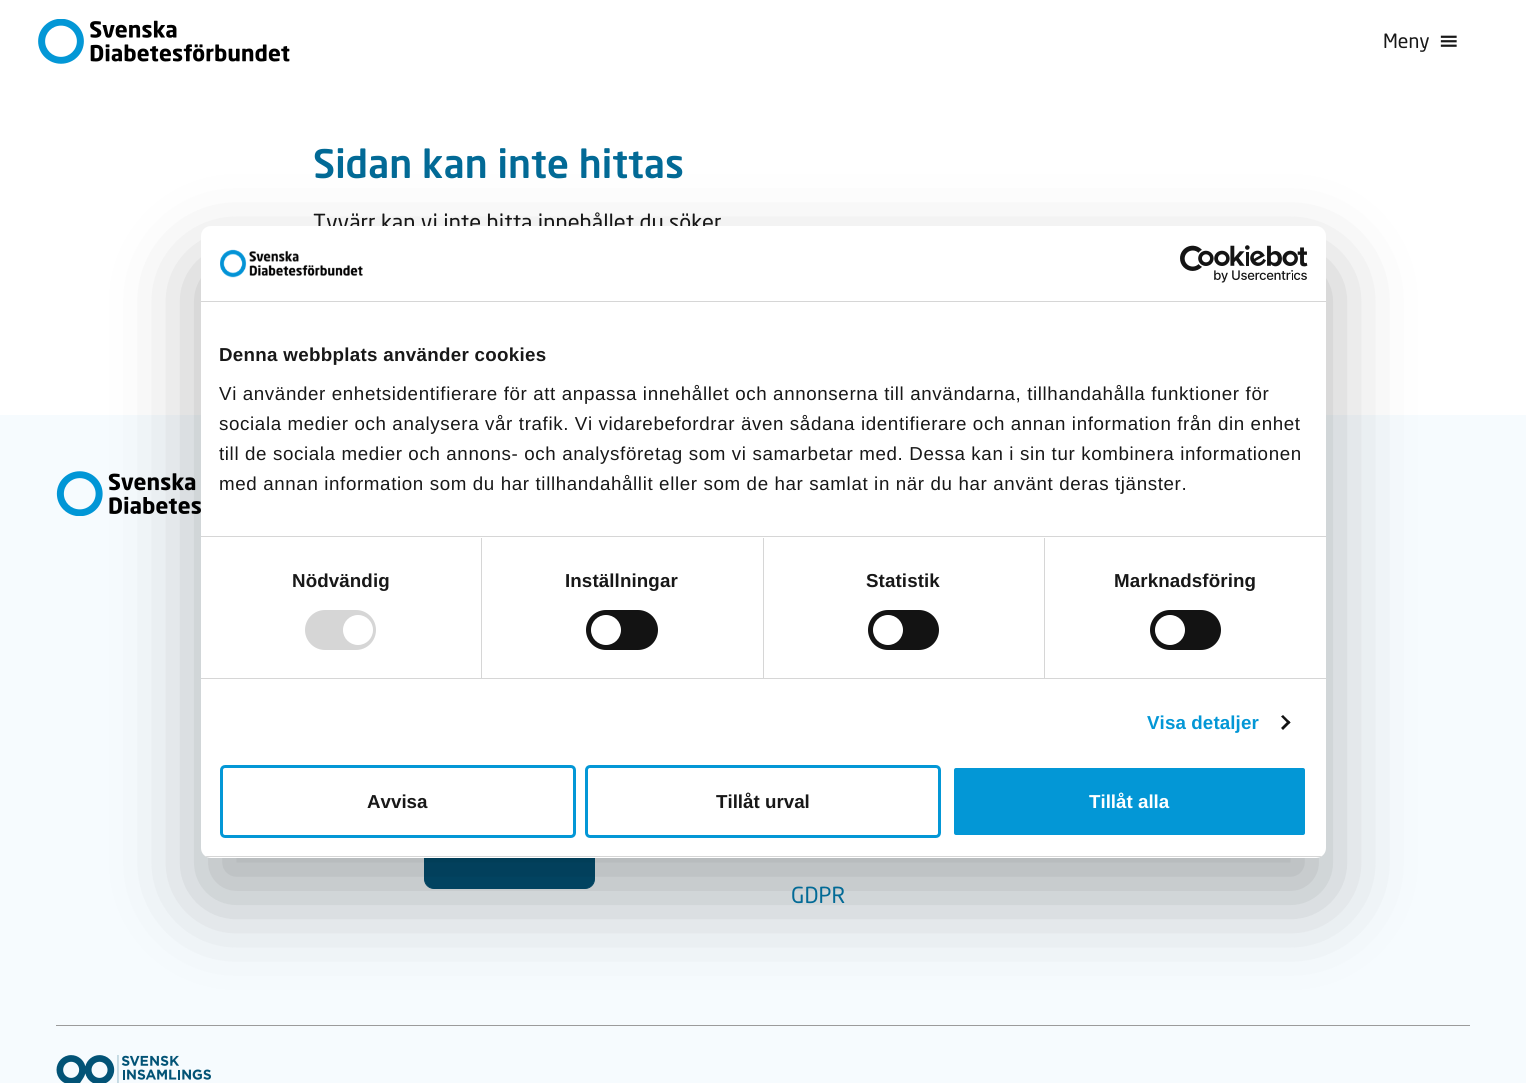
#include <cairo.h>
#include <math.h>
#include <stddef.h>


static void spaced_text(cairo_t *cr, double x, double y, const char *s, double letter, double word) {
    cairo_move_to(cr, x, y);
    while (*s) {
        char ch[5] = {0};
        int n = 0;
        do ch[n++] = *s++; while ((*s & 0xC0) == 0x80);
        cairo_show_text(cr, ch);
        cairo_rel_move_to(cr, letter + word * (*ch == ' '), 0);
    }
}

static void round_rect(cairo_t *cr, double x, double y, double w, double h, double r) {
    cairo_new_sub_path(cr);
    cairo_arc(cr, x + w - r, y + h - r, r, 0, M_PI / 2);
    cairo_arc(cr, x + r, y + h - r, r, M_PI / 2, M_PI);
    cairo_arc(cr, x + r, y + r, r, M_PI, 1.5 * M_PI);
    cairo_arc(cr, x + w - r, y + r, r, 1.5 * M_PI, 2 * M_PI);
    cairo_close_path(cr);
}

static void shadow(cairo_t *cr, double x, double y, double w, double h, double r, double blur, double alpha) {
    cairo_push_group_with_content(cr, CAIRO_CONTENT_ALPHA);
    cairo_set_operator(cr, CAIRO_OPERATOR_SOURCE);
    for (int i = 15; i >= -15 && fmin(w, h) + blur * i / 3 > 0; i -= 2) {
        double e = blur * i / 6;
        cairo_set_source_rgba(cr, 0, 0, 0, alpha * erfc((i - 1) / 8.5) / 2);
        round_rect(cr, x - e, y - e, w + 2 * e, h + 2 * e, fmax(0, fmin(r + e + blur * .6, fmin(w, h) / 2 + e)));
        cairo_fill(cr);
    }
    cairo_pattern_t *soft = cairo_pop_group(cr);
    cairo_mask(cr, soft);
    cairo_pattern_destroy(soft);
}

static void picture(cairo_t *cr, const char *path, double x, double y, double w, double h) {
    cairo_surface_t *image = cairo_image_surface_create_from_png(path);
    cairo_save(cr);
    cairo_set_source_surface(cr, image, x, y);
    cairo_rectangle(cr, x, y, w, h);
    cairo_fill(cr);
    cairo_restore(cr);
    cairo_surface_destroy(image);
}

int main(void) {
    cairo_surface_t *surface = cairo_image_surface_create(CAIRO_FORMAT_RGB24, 1526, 1083);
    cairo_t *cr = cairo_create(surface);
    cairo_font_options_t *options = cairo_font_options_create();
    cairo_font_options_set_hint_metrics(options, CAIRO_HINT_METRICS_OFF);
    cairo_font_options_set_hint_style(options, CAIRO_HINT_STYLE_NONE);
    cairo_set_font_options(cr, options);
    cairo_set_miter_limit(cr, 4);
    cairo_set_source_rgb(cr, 1, 1, 1);
    cairo_paint(cr);
    picture(cr, "img1.png", 38, 19, 252, 45);
    cairo_select_font_face(cr, "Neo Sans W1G", CAIRO_FONT_SLANT_NORMAL, CAIRO_FONT_WEIGHT_NORMAL);
    cairo_set_font_size(cr, 19.5);
    cairo_set_source_rgb(cr, 0.094, 0.094, 0.094);
    cairo_move_to(cr, 1383, 48);
    cairo_show_text(cr, "Meny");
    picture(cr, "img2.png", 1440, 35, 17, 12);
    cairo_select_font_face(cr, "Neo Sans W1G Medium", CAIRO_FONT_SLANT_NORMAL, CAIRO_FONT_WEIGHT_NORMAL);
    cairo_set_font_size(cr, 38.9);
    cairo_set_source_rgb(cr, 0.008, 0.416, 0.588);
    cairo_move_to(cr, 313, 178);
    cairo_show_text(cr, "Sidan kan inte hittas");
    cairo_select_font_face(cr, "Neo Sans W1G", CAIRO_FONT_SLANT_NORMAL, CAIRO_FONT_WEIGHT_NORMAL);
    cairo_set_font_size(cr, 21.9);
    cairo_set_source_rgb(cr, 0.094, 0.094, 0.094);
    cairo_move_to(cr, 313, 230);
    cairo_show_text(cr, "Tyvärr kan vi inte hitta innehållet du söker");
    cairo_set_source_rgb(cr, 0.961, 0.984, 0.996);
    cairo_rectangle(cr, 0, 415, 1526, 668);
    cairo_fill(cr);
    picture(cr, "img5.png", 56, 471, 145, 45);
    cairo_set_source_rgb(cr, 0.008, 0.325, 0.463);
    round_rect(cr, 424.5, 829.5, 170, 59, 9.5);
    cairo_fill_preserve(cr);
    cairo_set_line_width(cr, 1);
    cairo_stroke(cr);
    cairo_set_source_rgb(cr, 0.608, 0.608, 0.608);
    cairo_rectangle(cr, 56, 1025, 1414, 1);
    cairo_fill(cr);
    cairo_set_source_rgb(cr, 0, 0, 0);
    shadow(cr, 201, 266, 1125, 632, 10, 42.5, 0.3);
    cairo_set_source_rgb(cr, 1, 1, 1);
    round_rect(cr, 201, 226, 1125, 632, 10);
    cairo_fill(cr);
    cairo_set_source_rgb(cr, 0.839, 0.839, 0.839);
    cairo_rectangle(cr, 201, 301, 1125, 1);
    cairo_fill(cr);
    picture(cr, "img3.png", 220, 249, 143, 29);
    picture(cr, "img4.png", 1180, 245, 128, 38);
    cairo_rectangle(cr, 201, 536, 1125, 1);
    cairo_fill(cr);
    cairo_select_font_face(cr, "Liberation Sans", CAIRO_FONT_SLANT_NORMAL, CAIRO_FONT_WEIGHT_BOLD);
    cairo_set_font_size(cr, 18.75);
    cairo_set_source_rgb(cr, 0.094, 0.094, 0.094);
    spaced_text(cr, 219, 361, "Denna webbplats använder cookies", 0.3, 0);
    cairo_select_font_face(cr, "Liberation Sans", CAIRO_FONT_SLANT_NORMAL, CAIRO_FONT_WEIGHT_NORMAL);
    spaced_text(cr, 219, 400, "Vi använder enhetsidentifierare för att anpassa innehållet och annonserna till användarna, tillhandahålla funktioner för", 0.62, 0);
    spaced_text(cr, 219, 430, "sociala medier och analysera vår trafik. Vi vidarebefordrar även sådana identifierare och annan information från din enhet", 0.62, 0);
    spaced_text(cr, 219, 460, "till de sociala medier och annons- och analysföretag som vi samarbetar med. Dessa kan i sin tur kombinera informationen", 0.62, 0);
    spaced_text(cr, 219, 490, "med annan information som du har tillhandahållit eller som de har samlat in när du har använt deras tjänster.", 0.62, 0);
    cairo_set_source_rgb(cr, 0.839, 0.839, 0.839);
    cairo_rectangle(cr, 201, 678, 1125, 1);
    cairo_fill(cr);
    cairo_rectangle(cr, 481, 538, 1, 140);
    cairo_fill(cr);
    cairo_select_font_face(cr, "Liberation Sans", CAIRO_FONT_SLANT_NORMAL, CAIRO_FONT_WEIGHT_BOLD);
    cairo_set_source_rgb(cr, 0.094, 0.094, 0.094);
    spaced_text(cr, 292, 587, "Nödvändig", 0.1, 0);
    cairo_set_source_rgb(cr, 0.839, 0.839, 0.839);
    round_rect(cr, 305, 610, 71, 40, 20);
    cairo_fill(cr);
    cairo_set_source_rgb(cr, 1, 1, 1);
    cairo_arc(cr, 358, 630, 15, 0, 2 * M_PI);
    cairo_fill(cr);
    cairo_set_source_rgb(cr, 0.839, 0.839, 0.839);
    cairo_rectangle(cr, 763, 538, 1, 140);
    cairo_fill(cr);
    cairo_set_source_rgb(cr, 0.094, 0.094, 0.094);
    spaced_text(cr, 565, 587, "Inställningar", 0.1, 0);
    cairo_set_source_rgb(cr, 0.078, 0.078, 0.078);
    round_rect(cr, 586, 610, 72, 40, 20);
    cairo_fill(cr);
    cairo_set_source_rgb(cr, 1, 1, 1);
    cairo_arc(cr, 606, 630, 15, 0, 2 * M_PI);
    cairo_fill(cr);
    cairo_set_source_rgb(cr, 0.839, 0.839, 0.839);
    cairo_rectangle(cr, 1044, 538, 1, 140);
    cairo_fill(cr);
    cairo_set_source_rgb(cr, 0.094, 0.094, 0.094);
    spaced_text(cr, 866, 587, "Statistik", 0.1, 0);
    cairo_set_source_rgb(cr, 0.078, 0.078, 0.078);
    round_rect(cr, 868, 610, 71, 40, 20);
    cairo_fill(cr);
    cairo_set_source_rgb(cr, 1, 1, 1);
    cairo_arc(cr, 888, 630, 15, 0, 2 * M_PI);
    cairo_fill(cr);
    cairo_set_source_rgb(cr, 0.094, 0.094, 0.094);
    spaced_text(cr, 1114, 587, "Marknadsföring", 0.1, 0);
    cairo_set_source_rgb(cr, 0.078, 0.078, 0.078);
    round_rect(cr, 1150, 610, 71, 40, 20);
    cairo_fill(cr);
    cairo_set_source_rgb(cr, 1, 1, 1);
    cairo_arc(cr, 1170, 630, 15, 0, 2 * M_PI);
    cairo_fill(cr);
    cairo_set_source_rgb(cr, 0.012, 0.592, 0.839);
    spaced_text(cr, 1147, 729, "Visa detaljer", 0.1, 0);
    cairo_set_source_rgb(cr, 0.078, 0.078, 0.078);
    cairo_new_path(cr);
    cairo_move_to(cr, 1283, 715);
    cairo_line_to(cr, 1290.5, 722.5);
    cairo_line_to(cr, 1288.5, 724);
    cairo_line_to(cr, 1281, 716.5);
    cairo_close_path(cr);
    cairo_fill(cr);
    cairo_new_path(cr);
    cairo_move_to(cr, 1288.5, 720.5);
    cairo_line_to(cr, 1290.5, 722.5);
    cairo_line_to(cr, 1283, 730);
    cairo_line_to(cr, 1281, 728);
    cairo_close_path(cr);
    cairo_fill(cr);
    cairo_save(cr);
    round_rect(cr, 201, 226, 1125, 632, 10);
    cairo_clip(cr);
    cairo_set_source_rgb(cr, 0.839, 0.839, 0.839);
    cairo_rectangle(cr, 201, 856, 1125, 1);
    cairo_fill(cr);
    cairo_restore(cr);
    round_rect(cr, 221.5, 766.5, 353, 70, 3.5);
    cairo_set_source_rgb(cr, 0.012, 0.592, 0.839);
    cairo_set_line_width(cr, 3);
    cairo_stroke(cr);
    cairo_set_source_rgb(cr, 0.094, 0.094, 0.094);
    cairo_move_to(cr, 367, 808);
    cairo_show_text(cr, "Avvisa");
    round_rect(cr, 586.5, 766.5, 353, 70, 3.5);
    cairo_set_source_rgb(cr, 0.012, 0.592, 0.839);
    cairo_stroke(cr);
    cairo_set_source_rgb(cr, 0.094, 0.094, 0.094);
    cairo_move_to(cr, 716, 808);
    cairo_show_text(cr, "Tillåt urval");
    cairo_set_source_rgb(cr, 0.012, 0.592, 0.839);
    round_rect(cr, 952.5, 766.5, 354, 70, 3.5);
    cairo_fill_preserve(cr);
    cairo_set_source_rgb(cr, 1, 1, 1);
    cairo_stroke(cr);
    cairo_move_to(cr, 1089, 808);
    cairo_show_text(cr, "Tillåt alla");
    cairo_select_font_face(cr, "Neo Sans W1G", CAIRO_FONT_SLANT_NORMAL, CAIRO_FONT_WEIGHT_NORMAL);
    cairo_set_font_size(cr, 21.9);
    cairo_set_source_rgb(cr, 0.008, 0.416, 0.588);
    cairo_move_to(cr, 791, 903);
    cairo_show_text(cr, "GDPR");
    picture(cr, "img6.png", 56, 1055, 155, 28);
    cairo_surface_write_to_png(surface, "page.png");
    cairo_font_options_destroy(options);
    cairo_destroy(cr);
    cairo_surface_destroy(surface);
    return 0;
}
